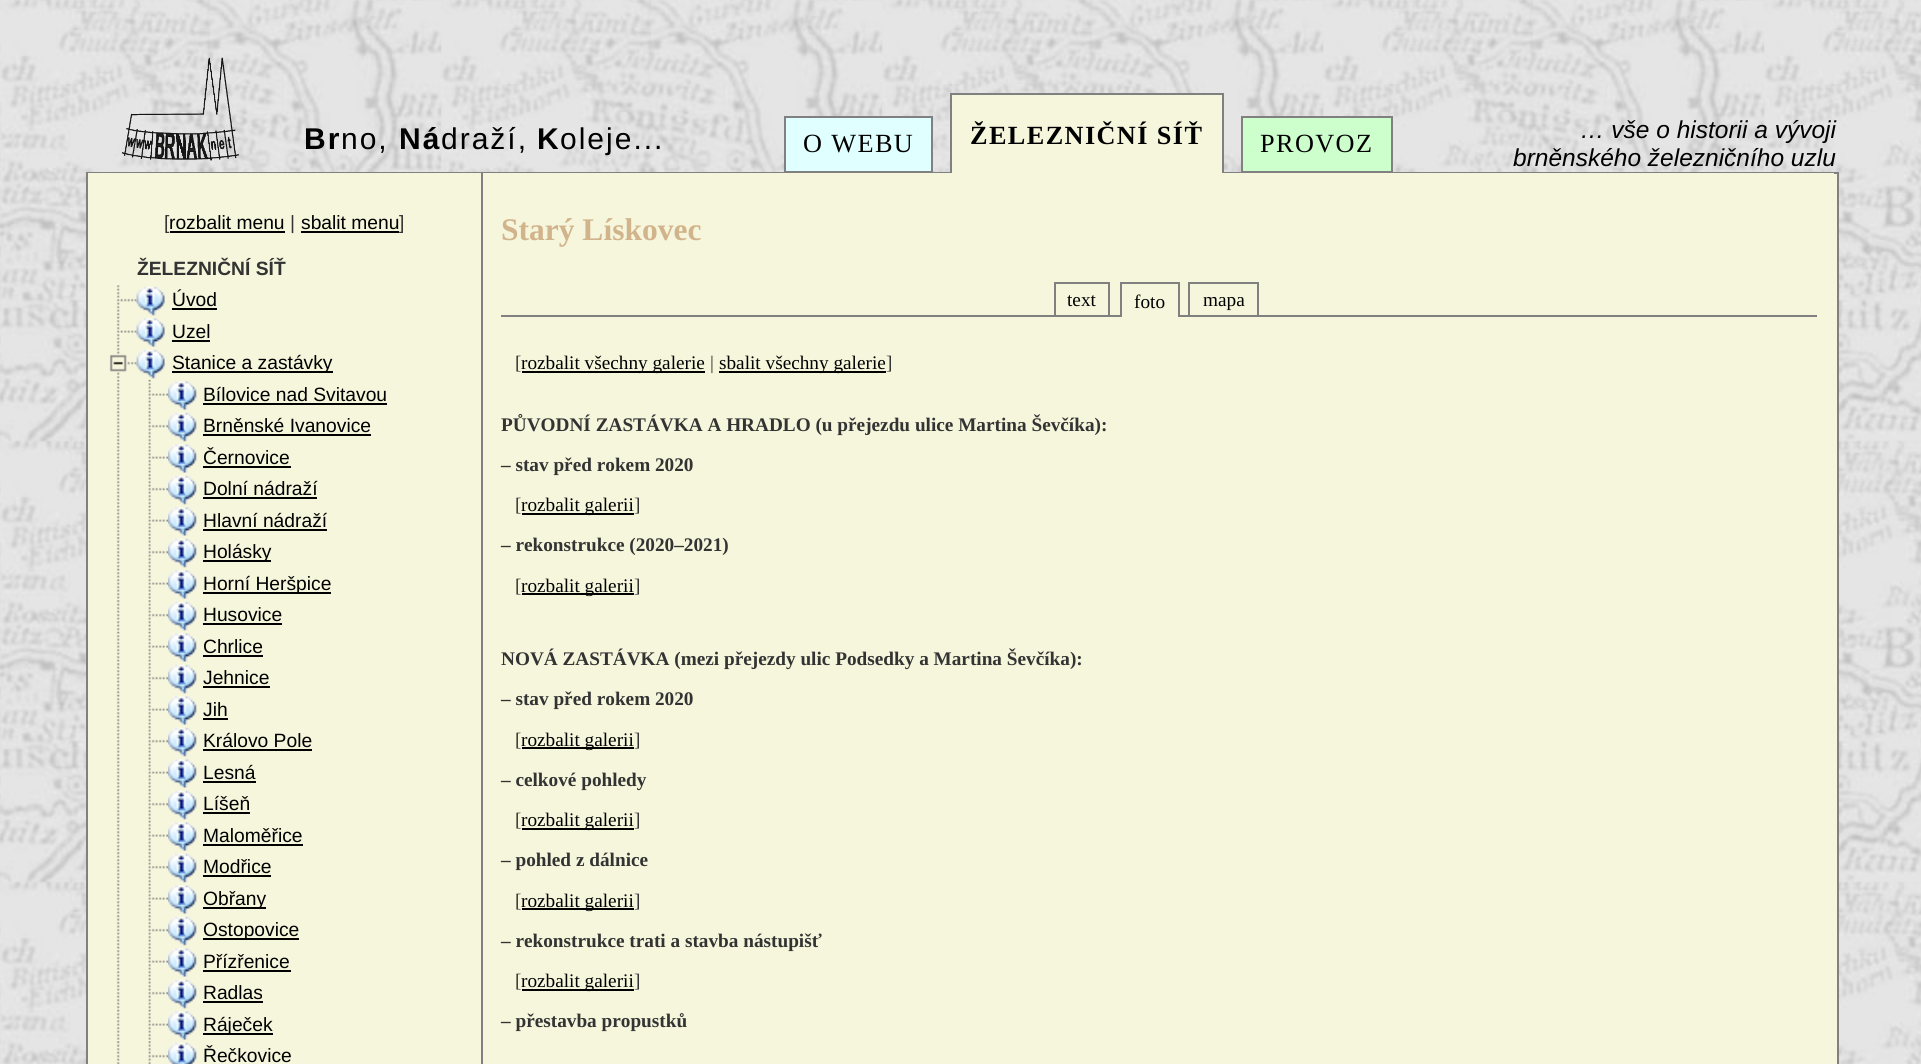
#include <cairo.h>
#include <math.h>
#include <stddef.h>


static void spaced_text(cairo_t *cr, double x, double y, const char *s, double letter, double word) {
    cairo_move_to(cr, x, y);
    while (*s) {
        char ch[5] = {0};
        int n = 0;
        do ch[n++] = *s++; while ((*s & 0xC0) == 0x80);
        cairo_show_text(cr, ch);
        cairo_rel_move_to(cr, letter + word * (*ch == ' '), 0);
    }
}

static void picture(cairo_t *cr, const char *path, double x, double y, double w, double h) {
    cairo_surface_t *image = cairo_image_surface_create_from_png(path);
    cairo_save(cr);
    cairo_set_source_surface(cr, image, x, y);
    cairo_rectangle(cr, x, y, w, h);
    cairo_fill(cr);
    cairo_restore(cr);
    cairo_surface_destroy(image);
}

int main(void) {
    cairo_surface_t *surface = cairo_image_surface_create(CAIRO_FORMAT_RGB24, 1921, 1064);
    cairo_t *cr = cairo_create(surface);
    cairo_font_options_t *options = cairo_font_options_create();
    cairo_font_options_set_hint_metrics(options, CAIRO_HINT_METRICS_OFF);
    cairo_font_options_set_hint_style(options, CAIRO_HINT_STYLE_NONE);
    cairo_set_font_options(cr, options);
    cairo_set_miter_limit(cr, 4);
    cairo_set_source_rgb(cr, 1, 1, 1);
    cairo_paint(cr);
    picture(cr, "img1.png", 0, 0, 1921, 1064);
    picture(cr, "img2.png", 122, 57, 117, 104);
    cairo_select_font_face(cr, "Liberation Sans", CAIRO_FONT_SLANT_NORMAL, CAIRO_FONT_WEIGHT_BOLD);
    cairo_set_font_size(cr, 30);
    cairo_set_source_rgb(cr, 0, 0, 0);
    spaced_text(cr, 304, 149, "Br", 2, 0);
    cairo_select_font_face(cr, "Liberation Sans", CAIRO_FONT_SLANT_NORMAL, CAIRO_FONT_WEIGHT_NORMAL);
    spaced_text(cr, 341, 149, "no,", 2, 0);
    cairo_select_font_face(cr, "Liberation Sans", CAIRO_FONT_SLANT_NORMAL, CAIRO_FONT_WEIGHT_BOLD);
    spaced_text(cr, 399, 149, "Ná", 2, 0);
    cairo_select_font_face(cr, "Liberation Sans", CAIRO_FONT_SLANT_NORMAL, CAIRO_FONT_WEIGHT_NORMAL);
    spaced_text(cr, 441, 149, "draží,", 2, 0);
    cairo_select_font_face(cr, "Liberation Sans", CAIRO_FONT_SLANT_NORMAL, CAIRO_FONT_WEIGHT_BOLD);
    spaced_text(cr, 537, 149, "K", 2, 0);
    cairo_select_font_face(cr, "Liberation Sans", CAIRO_FONT_SLANT_NORMAL, CAIRO_FONT_WEIGHT_NORMAL);
    spaced_text(cr, 560, 149, "oleje...", 2, 0);
    cairo_set_source_rgb(cr, 0.961, 0.961, 0.863);
    cairo_rectangle(cr, 1834, 174, 3, 890);
    cairo_fill(cr);
    cairo_rectangle(cr, 87, 173, 1751, 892);
    cairo_set_source_rgb(cr, 0.502, 0.502, 0.502);
    cairo_stroke(cr);
    cairo_set_source_rgb(cr, 0.878, 1, 1);
    cairo_rectangle(cr, 785, 117, 147, 55);
    cairo_fill_preserve(cr);
    cairo_set_source_rgb(cr, 0.502, 0.502, 0.502);
    cairo_stroke(cr);
    cairo_select_font_face(cr, "Liberation Serif", CAIRO_FONT_SLANT_NORMAL, CAIRO_FONT_WEIGHT_NORMAL);
    cairo_set_font_size(cr, 26.25);
    cairo_set_source_rgb(cr, 0, 0, 0);
    spaced_text(cr, 803, 152, "O WEBU", 1.4, 0);
    cairo_set_source_rgb(cr, 0.961, 0.961, 0.863);
    cairo_rectangle(cr, 952, 95, 270, 78);
    cairo_fill(cr);
    cairo_set_source_rgb(cr, 0.502, 0.502, 0.502);
    cairo_rectangle(cr, 950, 93, 273, 2);
    cairo_fill(cr);
    cairo_rectangle(cr, 1222, 93, 2, 84);
    cairo_fill(cr);
    cairo_rectangle(cr, 950, 93, 2, 84);
    cairo_fill(cr);
    cairo_select_font_face(cr, "Liberation Serif", CAIRO_FONT_SLANT_NORMAL, CAIRO_FONT_WEIGHT_BOLD);
    cairo_set_source_rgb(cr, 0, 0, 0);
    spaced_text(cr, 970, 144, "ŽELEZNIČNÍ SÍŤ", 1.4, 0);
    cairo_set_source_rgb(cr, 0.8, 1, 0.8);
    cairo_rectangle(cr, 1242, 117, 150, 55);
    cairo_fill_preserve(cr);
    cairo_set_source_rgb(cr, 0.502, 0.502, 0.502);
    cairo_stroke(cr);
    cairo_select_font_face(cr, "Liberation Serif", CAIRO_FONT_SLANT_NORMAL, CAIRO_FONT_WEIGHT_NORMAL);
    cairo_set_source_rgb(cr, 0, 0, 0);
    spaced_text(cr, 1260, 152, "PROVOZ", 1.4, 0);
    cairo_select_font_face(cr, "Liberation Sans", CAIRO_FONT_SLANT_ITALIC, CAIRO_FONT_WEIGHT_NORMAL);
    cairo_set_font_size(cr, 24.5);
    cairo_move_to(cr, 1580, 138);
    cairo_show_text(cr, "… vše o historii a vývoji");
    cairo_move_to(cr, 1513, 166);
    cairo_show_text(cr, "brněnského železničního uzlu");
    cairo_set_source_rgb(cr, 0.961, 0.961, 0.863);
    cairo_rectangle(cr, 88, 173, 393, 891);
    cairo_fill(cr);
    cairo_select_font_face(cr, "Liberation Sans", CAIRO_FONT_SLANT_NORMAL, CAIRO_FONT_WEIGHT_NORMAL);
    cairo_set_font_size(cr, 19.25);
    cairo_set_source_rgb(cr, 0.2, 0.2, 0.2);
    cairo_move_to(cr, 164, 229);
    cairo_show_text(cr, "[");
    cairo_set_source_rgb(cr, 0, 0, 0);
    cairo_move_to(cr, 169, 229);
    cairo_show_text(cr, "rozbalit menu");
    cairo_rectangle(cr, 170, 231, 115, 2);
    cairo_fill(cr);
    cairo_set_source_rgb(cr, 0.2, 0.2, 0.2);
    cairo_move_to(cr, 290, 229);
    cairo_show_text(cr, "|");
    cairo_set_source_rgb(cr, 0, 0, 0);
    cairo_move_to(cr, 301, 229);
    cairo_show_text(cr, "sbalit menu");
    cairo_rectangle(cr, 301, 231, 98, 2);
    cairo_fill(cr);
    cairo_set_source_rgb(cr, 0.2, 0.2, 0.2);
    cairo_move_to(cr, 399, 229);
    cairo_show_text(cr, "]");
    cairo_select_font_face(cr, "Liberation Sans", CAIRO_FONT_SLANT_NORMAL, CAIRO_FONT_WEIGHT_BOLD);
    cairo_move_to(cr, 137, 275);
    cairo_show_text(cr, "ŽELEZNIČNÍ SÍŤ");
    picture(cr, "img3.png", 116, 285, 21, 31);
    picture(cr, "img4.png", 136, 286, 29, 30);
    cairo_select_font_face(cr, "Liberation Sans", CAIRO_FONT_SLANT_NORMAL, CAIRO_FONT_WEIGHT_NORMAL);
    cairo_set_source_rgb(cr, 0, 0, 0);
    cairo_move_to(cr, 172, 306);
    cairo_show_text(cr, "Úvod");
    cairo_rectangle(cr, 172, 308, 45, 2);
    cairo_fill(cr);
    picture(cr, "img5.png", 116, 316, 21, 31);
    picture(cr, "img6.png", 136, 318, 29, 29);
    cairo_move_to(cr, 172, 338);
    cairo_show_text(cr, "Uzel");
    cairo_rectangle(cr, 172, 340, 38, 2);
    cairo_fill(cr);
    picture(cr, "img7.png", 109, 348, 28, 31);
    picture(cr, "img4.png", 136, 349, 29, 30);
    cairo_rectangle(cr, 172, 371, 161, 2);
    cairo_fill(cr);
    cairo_move_to(cr, 172, 369);
    cairo_show_text(cr, "Stanice a zastávky");
    picture(cr, "img8.png", 116, 379, 4, 31);
    picture(cr, "img9.png", 148, 379, 20, 31);
    picture(cr, "img10.png", 168, 381, 29, 29);
    cairo_move_to(cr, 203, 401);
    cairo_show_text(cr, "Bílovice nad Svitavou");
    cairo_rectangle(cr, 203, 403, 184, 2);
    cairo_fill(cr);
    picture(cr, "img11.png", 116, 411, 4, 31);
    picture(cr, "img12.png", 148, 411, 20, 31);
    picture(cr, "img13.png", 168, 412, 29, 30);
    cairo_move_to(cr, 203, 432);
    cairo_show_text(cr, "Brněnské Ivanovice");
    cairo_rectangle(cr, 203, 434, 168, 2);
    cairo_fill(cr);
    picture(cr, "img14.png", 116, 442, 4, 31);
    picture(cr, "img15.png", 148, 442, 20, 31);
    picture(cr, "img10.png", 168, 444, 29, 29);
    cairo_move_to(cr, 203, 464);
    cairo_show_text(cr, "Černovice");
    cairo_rectangle(cr, 203, 466, 88, 2);
    cairo_fill(cr);
    picture(cr, "img11.png", 116, 474, 4, 31);
    picture(cr, "img12.png", 148, 474, 20, 31);
    picture(cr, "img13.png", 168, 475, 29, 30);
    cairo_move_to(cr, 203, 495);
    cairo_show_text(cr, "Dolní nádraží");
    cairo_rectangle(cr, 203, 497, 114, 2);
    cairo_fill(cr);
    picture(cr, "img14.png", 116, 505, 4, 31);
    picture(cr, "img15.png", 148, 505, 20, 31);
    picture(cr, "img10.png", 168, 507, 29, 29);
    cairo_move_to(cr, 203, 527);
    cairo_show_text(cr, "Hlavní nádraží");
    cairo_rectangle(cr, 203, 529, 124, 2);
    cairo_fill(cr);
    picture(cr, "img11.png", 116, 537, 4, 31);
    picture(cr, "img12.png", 148, 537, 20, 31);
    picture(cr, "img13.png", 168, 538, 29, 30);
    cairo_rectangle(cr, 203, 560, 68, 2);
    cairo_fill(cr);
    cairo_move_to(cr, 203, 558);
    cairo_show_text(cr, "Holásky");
    picture(cr, "img14.png", 116, 568, 4, 31);
    picture(cr, "img15.png", 148, 568, 20, 31);
    picture(cr, "img10.png", 168, 570, 29, 29);
    cairo_rectangle(cr, 203, 592, 128, 2);
    cairo_fill(cr);
    cairo_move_to(cr, 203, 590);
    cairo_show_text(cr, "Horní Heršpice");
    picture(cr, "img11.png", 116, 600, 4, 31);
    picture(cr, "img12.png", 148, 600, 20, 31);
    picture(cr, "img13.png", 168, 601, 29, 30);
    cairo_move_to(cr, 203, 621);
    cairo_show_text(cr, "Husovice");
    cairo_rectangle(cr, 203, 623, 79, 2);
    cairo_fill(cr);
    picture(cr, "img14.png", 116, 631, 4, 31);
    picture(cr, "img15.png", 148, 631, 20, 31);
    picture(cr, "img10.png", 168, 633, 29, 29);
    cairo_move_to(cr, 203, 653);
    cairo_show_text(cr, "Chrlice");
    cairo_rectangle(cr, 203, 655, 60, 2);
    cairo_fill(cr);
    picture(cr, "img11.png", 116, 663, 4, 31);
    picture(cr, "img12.png", 148, 663, 20, 31);
    picture(cr, "img13.png", 168, 664, 29, 30);
    cairo_move_to(cr, 203, 684);
    cairo_show_text(cr, "Jehnice");
    cairo_rectangle(cr, 203, 686, 67, 2);
    cairo_fill(cr);
    picture(cr, "img14.png", 116, 694, 4, 31);
    picture(cr, "img15.png", 148, 694, 20, 31);
    picture(cr, "img10.png", 168, 696, 29, 29);
    cairo_move_to(cr, 203, 716);
    cairo_show_text(cr, "Jih");
    cairo_rectangle(cr, 203, 718, 25, 2);
    cairo_fill(cr);
    picture(cr, "img11.png", 116, 726, 4, 31);
    picture(cr, "img12.png", 148, 726, 20, 31);
    picture(cr, "img13.png", 168, 727, 29, 30);
    cairo_move_to(cr, 203, 747);
    cairo_show_text(cr, "Královo Pole");
    cairo_rectangle(cr, 203, 749, 109, 2);
    cairo_fill(cr);
    picture(cr, "img14.png", 116, 757, 4, 31);
    picture(cr, "img15.png", 148, 757, 20, 31);
    picture(cr, "img10.png", 168, 759, 29, 29);
    cairo_move_to(cr, 203, 779);
    cairo_show_text(cr, "Lesná");
    cairo_rectangle(cr, 203, 781, 53, 2);
    cairo_fill(cr);
    picture(cr, "img11.png", 116, 789, 4, 31);
    picture(cr, "img12.png", 148, 789, 20, 31);
    picture(cr, "img13.png", 168, 790, 29, 30);
    cairo_move_to(cr, 203, 810);
    cairo_show_text(cr, "Líšeň");
    cairo_rectangle(cr, 203, 812, 47, 2);
    cairo_fill(cr);
    picture(cr, "img14.png", 116, 820, 4, 31);
    picture(cr, "img15.png", 148, 820, 20, 31);
    picture(cr, "img10.png", 168, 822, 29, 29);
    cairo_move_to(cr, 203, 842);
    cairo_show_text(cr, "Maloměřice");
    cairo_rectangle(cr, 203, 844, 100, 2);
    cairo_fill(cr);
    picture(cr, "img11.png", 116, 852, 4, 31);
    picture(cr, "img12.png", 148, 852, 20, 31);
    picture(cr, "img13.png", 168, 853, 29, 30);
    cairo_move_to(cr, 203, 873);
    cairo_show_text(cr, "Modřice");
    cairo_rectangle(cr, 203, 875, 68, 2);
    cairo_fill(cr);
    picture(cr, "img14.png", 116, 883, 4, 31);
    picture(cr, "img15.png", 148, 883, 20, 31);
    picture(cr, "img10.png", 168, 885, 29, 29);
    cairo_rectangle(cr, 203, 907, 63, 2);
    cairo_fill(cr);
    cairo_move_to(cr, 203, 905);
    cairo_show_text(cr, "Obřany");
    picture(cr, "img11.png", 116, 915, 4, 31);
    picture(cr, "img12.png", 148, 915, 20, 31);
    picture(cr, "img13.png", 168, 916, 29, 30);
    cairo_rectangle(cr, 203, 938, 96, 2);
    cairo_fill(cr);
    cairo_move_to(cr, 203, 936);
    cairo_show_text(cr, "Ostopovice");
    picture(cr, "img14.png", 116, 946, 4, 31);
    picture(cr, "img15.png", 148, 946, 20, 31);
    picture(cr, "img10.png", 168, 948, 29, 29);
    cairo_move_to(cr, 203, 968);
    cairo_show_text(cr, "Přízřenice");
    cairo_rectangle(cr, 203, 970, 88, 2);
    cairo_fill(cr);
    picture(cr, "img11.png", 116, 978, 4, 31);
    picture(cr, "img12.png", 148, 978, 20, 31);
    picture(cr, "img13.png", 168, 979, 29, 30);
    cairo_move_to(cr, 203, 999);
    cairo_show_text(cr, "Radlas");
    cairo_rectangle(cr, 203, 1001, 60, 2);
    cairo_fill(cr);
    picture(cr, "img14.png", 116, 1009, 4, 31);
    picture(cr, "img15.png", 148, 1009, 20, 31);
    picture(cr, "img10.png", 168, 1011, 29, 29);
    cairo_rectangle(cr, 203, 1033, 70, 2);
    cairo_fill(cr);
    cairo_move_to(cr, 203, 1031);
    cairo_show_text(cr, "Ráječek");
    picture(cr, "img16.png", 116, 1041, 4, 23);
    picture(cr, "img17.png", 148, 1041, 20, 23);
    picture(cr, "img18.png", 168, 1042, 29, 22);
    cairo_move_to(cr, 203, 1062);
    cairo_show_text(cr, "Řečkovice");
    cairo_set_source_rgb(cr, 0.961, 0.961, 0.863);
    cairo_rectangle(cr, 483, 173, 1351, 891);
    cairo_fill(cr);
    cairo_set_source_rgb(cr, 0.502, 0.502, 0.502);
    cairo_rectangle(cr, 481, 173, 2, 891);
    cairo_fill(cr);
    cairo_select_font_face(cr, "Liberation Serif", CAIRO_FONT_SLANT_NORMAL, CAIRO_FONT_WEIGHT_BOLD);
    cairo_set_font_size(cr, 31.5);
    cairo_set_source_rgb(cr, 0.824, 0.706, 0.549);
    cairo_move_to(cr, 501, 240);
    cairo_show_text(cr, "Starý Lískovec");
    cairo_set_source_rgb(cr, 0.502, 0.502, 0.502);
    cairo_rectangle(cr, 501, 315, 1316, 2);
    cairo_fill(cr);
    cairo_select_font_face(cr, "Liberation Serif", CAIRO_FONT_SLANT_NORMAL, CAIRO_FONT_WEIGHT_NORMAL);
    cairo_set_font_size(cr, 19.25);
    cairo_set_source_rgb(cr, 0, 0, 0);
    cairo_move_to(cr, 1067, 306);
    cairo_show_text(cr, "text");
    cairo_set_source_rgb(cr, 0.502, 0.502, 0.502);
    cairo_rectangle(cr, 1054, 282, 56, 2);
    cairo_fill(cr);
    cairo_rectangle(cr, 1108, 282, 2, 33);
    cairo_fill(cr);
    cairo_rectangle(cr, 1054, 282, 2, 33);
    cairo_fill(cr);
    cairo_set_source_rgb(cr, 0, 0, 0);
    cairo_move_to(cr, 1134, 308);
    cairo_show_text(cr, "foto");
    cairo_set_source_rgb(cr, 0.961, 0.961, 0.863);
    cairo_rectangle(cr, 1122, 315, 56, 2);
    cairo_fill(cr);
    cairo_set_source_rgb(cr, 0.502, 0.502, 0.502);
    cairo_rectangle(cr, 1120, 282, 60, 2);
    cairo_fill(cr);
    cairo_rectangle(cr, 1178, 282, 2, 35);
    cairo_fill(cr);
    cairo_rectangle(cr, 1120, 282, 2, 35);
    cairo_fill(cr);
    cairo_set_source_rgb(cr, 0, 0, 0);
    cairo_move_to(cr, 1203, 306);
    cairo_show_text(cr, "mapa");
    cairo_set_source_rgb(cr, 0.502, 0.502, 0.502);
    cairo_rectangle(cr, 1188, 282, 70, 2);
    cairo_fill(cr);
    cairo_rectangle(cr, 1257, 282, 2, 33);
    cairo_fill(cr);
    cairo_rectangle(cr, 1188, 282, 2, 33);
    cairo_fill(cr);
    cairo_set_source_rgb(cr, 0.2, 0.2, 0.2);
    cairo_move_to(cr, 515, 369);
    cairo_show_text(cr, "[");
    cairo_set_source_rgb(cr, 0, 0, 0);
    cairo_rectangle(cr, 522, 371, 183, 2);
    cairo_fill(cr);
    cairo_move_to(cr, 521, 369);
    cairo_show_text(cr, "rozbalit všechny galerie");
    cairo_set_source_rgb(cr, 0.2, 0.2, 0.2);
    cairo_move_to(cr, 710, 369);
    cairo_show_text(cr, "|");
    cairo_set_source_rgb(cr, 0, 0, 0);
    cairo_rectangle(cr, 719, 371, 167, 2);
    cairo_fill(cr);
    cairo_move_to(cr, 719, 369);
    cairo_show_text(cr, "sbalit všechny galerie");
    cairo_set_source_rgb(cr, 0.2, 0.2, 0.2);
    cairo_move_to(cr, 886, 369);
    cairo_show_text(cr, "]");
    cairo_select_font_face(cr, "Liberation Serif", CAIRO_FONT_SLANT_NORMAL, CAIRO_FONT_WEIGHT_BOLD);
    cairo_move_to(cr, 501, 431);
    cairo_show_text(cr, "PŮVODNÍ ZASTÁVKA A HRADLO (u přejezdu ulice Martina Ševčíka):");
    cairo_move_to(cr, 501, 471);
    cairo_show_text(cr, "– stav před rokem 2020");
    cairo_select_font_face(cr, "Liberation Serif", CAIRO_FONT_SLANT_NORMAL, CAIRO_FONT_WEIGHT_NORMAL);
    cairo_move_to(cr, 515, 511);
    cairo_show_text(cr, "[");
    cairo_set_source_rgb(cr, 0, 0, 0);
    cairo_rectangle(cr, 522, 513, 112, 2);
    cairo_fill(cr);
    cairo_move_to(cr, 521, 511);
    cairo_show_text(cr, "rozbalit galerii");
    cairo_set_source_rgb(cr, 0.2, 0.2, 0.2);
    cairo_move_to(cr, 634, 511);
    cairo_show_text(cr, "]");
    cairo_select_font_face(cr, "Liberation Serif", CAIRO_FONT_SLANT_NORMAL, CAIRO_FONT_WEIGHT_BOLD);
    cairo_move_to(cr, 501, 551);
    cairo_show_text(cr, "– rekonstrukce (2020–2021)");
    cairo_select_font_face(cr, "Liberation Serif", CAIRO_FONT_SLANT_NORMAL, CAIRO_FONT_WEIGHT_NORMAL);
    cairo_move_to(cr, 515, 592);
    cairo_show_text(cr, "[");
    cairo_set_source_rgb(cr, 0, 0, 0);
    cairo_rectangle(cr, 522, 593, 112, 2);
    cairo_fill(cr);
    cairo_move_to(cr, 521, 592);
    cairo_show_text(cr, "rozbalit galerii");
    cairo_set_source_rgb(cr, 0.2, 0.2, 0.2);
    cairo_move_to(cr, 634, 592);
    cairo_show_text(cr, "]");
    cairo_select_font_face(cr, "Liberation Serif", CAIRO_FONT_SLANT_NORMAL, CAIRO_FONT_WEIGHT_BOLD);
    cairo_move_to(cr, 501, 665);
    cairo_show_text(cr, "NOVÁ ZASTÁVKA (mezi přejezdy ulic Podsedky a Martina Ševčíka):");
    cairo_move_to(cr, 501, 705);
    cairo_show_text(cr, "– stav před rokem 2020");
    cairo_select_font_face(cr, "Liberation Serif", CAIRO_FONT_SLANT_NORMAL, CAIRO_FONT_WEIGHT_NORMAL);
    cairo_move_to(cr, 515, 746);
    cairo_show_text(cr, "[");
    cairo_set_source_rgb(cr, 0, 0, 0);
    cairo_rectangle(cr, 522, 747, 112, 2);
    cairo_fill(cr);
    cairo_move_to(cr, 521, 746);
    cairo_show_text(cr, "rozbalit galerii");
    cairo_set_source_rgb(cr, 0.2, 0.2, 0.2);
    cairo_move_to(cr, 634, 746);
    cairo_show_text(cr, "]");
    cairo_select_font_face(cr, "Liberation Serif", CAIRO_FONT_SLANT_NORMAL, CAIRO_FONT_WEIGHT_BOLD);
    cairo_move_to(cr, 501, 786);
    cairo_show_text(cr, "– celkové pohledy");
    cairo_select_font_face(cr, "Liberation Serif", CAIRO_FONT_SLANT_NORMAL, CAIRO_FONT_WEIGHT_NORMAL);
    cairo_move_to(cr, 515, 826);
    cairo_show_text(cr, "[");
    cairo_set_source_rgb(cr, 0, 0, 0);
    cairo_rectangle(cr, 522, 828, 112, 2);
    cairo_fill(cr);
    cairo_move_to(cr, 521, 826);
    cairo_show_text(cr, "rozbalit galerii");
    cairo_set_source_rgb(cr, 0.2, 0.2, 0.2);
    cairo_move_to(cr, 634, 826);
    cairo_show_text(cr, "]");
    cairo_select_font_face(cr, "Liberation Serif", CAIRO_FONT_SLANT_NORMAL, CAIRO_FONT_WEIGHT_BOLD);
    cairo_move_to(cr, 501, 866);
    cairo_show_text(cr, "– pohled z dálnice");
    cairo_select_font_face(cr, "Liberation Serif", CAIRO_FONT_SLANT_NORMAL, CAIRO_FONT_WEIGHT_NORMAL);
    cairo_move_to(cr, 515, 907);
    cairo_show_text(cr, "[");
    cairo_set_source_rgb(cr, 0, 0, 0);
    cairo_rectangle(cr, 522, 908, 112, 2);
    cairo_fill(cr);
    cairo_move_to(cr, 521, 907);
    cairo_show_text(cr, "rozbalit galerii");
    cairo_set_source_rgb(cr, 0.2, 0.2, 0.2);
    cairo_move_to(cr, 634, 907);
    cairo_show_text(cr, "]");
    cairo_select_font_face(cr, "Liberation Serif", CAIRO_FONT_SLANT_NORMAL, CAIRO_FONT_WEIGHT_BOLD);
    cairo_move_to(cr, 501, 947);
    cairo_show_text(cr, "– rekonstrukce trati a stavba nástupišť");
    cairo_select_font_face(cr, "Liberation Serif", CAIRO_FONT_SLANT_NORMAL, CAIRO_FONT_WEIGHT_NORMAL);
    cairo_move_to(cr, 515, 987);
    cairo_show_text(cr, "[");
    cairo_set_source_rgb(cr, 0, 0, 0);
    cairo_rectangle(cr, 522, 989, 112, 2);
    cairo_fill(cr);
    cairo_move_to(cr, 521, 987);
    cairo_show_text(cr, "rozbalit galerii");
    cairo_set_source_rgb(cr, 0.2, 0.2, 0.2);
    cairo_move_to(cr, 634, 987);
    cairo_show_text(cr, "]");
    cairo_select_font_face(cr, "Liberation Serif", CAIRO_FONT_SLANT_NORMAL, CAIRO_FONT_WEIGHT_BOLD);
    cairo_move_to(cr, 501, 1027);
    cairo_show_text(cr, "– přestavba propustků");
    cairo_surface_write_to_png(surface, "page.png");
    cairo_font_options_destroy(options);
    cairo_destroy(cr);
    cairo_surface_destroy(surface);
    return 0;
}
